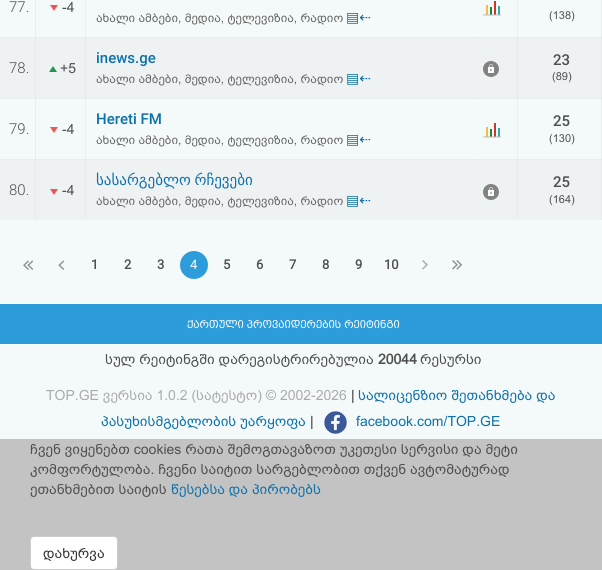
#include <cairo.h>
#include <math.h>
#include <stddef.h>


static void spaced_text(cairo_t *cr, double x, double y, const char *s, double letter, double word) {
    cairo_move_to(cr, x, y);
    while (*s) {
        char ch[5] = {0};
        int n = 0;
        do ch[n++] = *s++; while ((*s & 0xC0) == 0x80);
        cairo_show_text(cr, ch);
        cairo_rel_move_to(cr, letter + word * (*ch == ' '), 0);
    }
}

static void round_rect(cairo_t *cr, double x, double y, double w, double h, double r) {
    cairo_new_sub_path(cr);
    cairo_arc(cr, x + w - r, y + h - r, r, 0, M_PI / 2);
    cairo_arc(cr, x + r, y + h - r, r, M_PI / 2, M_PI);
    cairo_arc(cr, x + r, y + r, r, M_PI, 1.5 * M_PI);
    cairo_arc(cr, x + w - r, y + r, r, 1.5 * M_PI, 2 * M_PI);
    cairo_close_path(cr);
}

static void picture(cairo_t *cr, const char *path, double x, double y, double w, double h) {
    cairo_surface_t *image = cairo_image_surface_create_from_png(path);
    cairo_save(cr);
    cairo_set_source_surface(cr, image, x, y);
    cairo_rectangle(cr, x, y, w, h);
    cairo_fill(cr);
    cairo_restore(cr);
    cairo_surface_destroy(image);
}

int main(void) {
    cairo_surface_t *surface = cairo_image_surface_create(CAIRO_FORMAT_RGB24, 602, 570);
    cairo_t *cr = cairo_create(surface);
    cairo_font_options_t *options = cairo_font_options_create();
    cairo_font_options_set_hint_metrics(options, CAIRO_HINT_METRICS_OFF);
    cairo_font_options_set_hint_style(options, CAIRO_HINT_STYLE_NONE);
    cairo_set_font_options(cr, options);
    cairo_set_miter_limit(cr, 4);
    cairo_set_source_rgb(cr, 0.957, 0.973, 0.976);
    cairo_paint(cr);
    cairo_set_source_rgb(cr, 0.922, 0.933, 0.933);
    cairo_rectangle(cr, 35, 0, 1, 38);
    cairo_fill(cr);
    cairo_rectangle(cr, 85, 0, 1, 38);
    cairo_fill(cr);
    cairo_rectangle(cr, 517, 0, 1, 38);
    cairo_fill(cr);
    cairo_rectangle(cr, 601, 0, 1, 38);
    cairo_fill(cr);
    cairo_rectangle(cr, 35, 98, 1, 62);
    cairo_fill(cr);
    cairo_rectangle(cr, 85, 98, 1, 62);
    cairo_fill(cr);
    cairo_rectangle(cr, 517, 98, 1, 62);
    cairo_fill(cr);
    cairo_rectangle(cr, 601, 98, 1, 62);
    cairo_fill(cr);
    cairo_rectangle(cr, 0, 159, 602, 1);
    cairo_fill(cr);
    cairo_set_source_rgb(cr, 0.882, 0.882, 0.882);
    cairo_rectangle(cr, 35, 159, 1, 1);
    cairo_fill(cr);
    cairo_rectangle(cr, 85, 159, 1, 1);
    cairo_fill(cr);
    cairo_set_source_rgb(cr, 0.902, 0.91, 0.91);
    cairo_rectangle(cr, 472, 159, 1, 1);
    cairo_fill(cr);
    cairo_select_font_face(cr, "Roboto Light", CAIRO_FONT_SLANT_NORMAL, CAIRO_FONT_WEIGHT_NORMAL);
    cairo_set_font_size(cr, 15);
    cairo_set_source_rgb(cr, 0.31, 0.31, 0.31);
    cairo_move_to(cr, 9, 12);
    cairo_show_text(cr, "77.");
    picture(cr, "img1.png", 50, 5, 8, 6);
    cairo_select_font_face(cr, "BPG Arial", CAIRO_FONT_SLANT_NORMAL, CAIRO_FONT_WEIGHT_NORMAL);
    cairo_set_font_size(cr, 14);
    cairo_move_to(cr, 62, 12);
    cairo_show_text(cr, "-4");
    picture(cr, "img2.png", 483, 1, 18, 15);
    cairo_set_font_size(cr, 12);
    cairo_set_source_rgb(cr, 0.4, 0.4, 0.4);
    cairo_move_to(cr, 96, 22);
    cairo_show_text(cr, "ახალი ამბები, მედია, ტელევიზია, რადიო");
    cairo_select_font_face(cr, "DejaVu Sans", CAIRO_FONT_SLANT_NORMAL, CAIRO_FONT_WEIGHT_NORMAL);
    cairo_set_font_size(cr, 14);
    cairo_set_source_rgb(cr, 0.055, 0.443, 0.663);
    cairo_move_to(cr, 346, 22);
    cairo_show_text(cr, "▤⇠");
    cairo_select_font_face(cr, "BPG Arial", CAIRO_FONT_SLANT_NORMAL, CAIRO_FONT_WEIGHT_NORMAL);
    cairo_set_font_size(cr, 11);
    cairo_set_source_rgb(cr, 0.31, 0.31, 0.31);
    cairo_move_to(cr, 549, 19);
    cairo_show_text(cr, "(138)");
    cairo_set_source_rgb(cr, 0.933, 0.949, 0.953);
    cairo_rectangle(cr, 0, 38, 601, 60);
    cairo_fill(cr);
    cairo_set_source_rgb(cr, 0.91, 0.918, 0.922);
    cairo_rectangle(cr, 35, 37, 1, 62);
    cairo_fill(cr);
    cairo_rectangle(cr, 0, 37, 36, 1);
    cairo_fill(cr);
    cairo_rectangle(cr, 85, 37, 1, 62);
    cairo_fill(cr);
    cairo_rectangle(cr, 35, 37, 438, 1);
    cairo_fill(cr);
    cairo_set_source_rgb(cr, 0.875, 0.878, 0.882);
    cairo_rectangle(cr, 35, 37, 1, 1);
    cairo_fill(cr);
    cairo_rectangle(cr, 85, 37, 1, 1);
    cairo_fill(cr);
    cairo_set_source_rgb(cr, 0.91, 0.918, 0.922);
    cairo_rectangle(cr, 517, 37, 1, 62);
    cairo_fill(cr);
    cairo_rectangle(cr, 472, 37, 46, 1);
    cairo_fill(cr);
    cairo_set_source_rgb(cr, 0.894, 0.898, 0.902);
    cairo_rectangle(cr, 472, 37, 1, 1);
    cairo_fill(cr);
    cairo_set_source_rgb(cr, 0.91, 0.918, 0.922);
    cairo_rectangle(cr, 601, 37, 1, 62);
    cairo_fill(cr);
    cairo_rectangle(cr, 0, 98, 602, 1);
    cairo_fill(cr);
    cairo_set_source_rgb(cr, 0.875, 0.878, 0.882);
    cairo_rectangle(cr, 35, 98, 1, 1);
    cairo_fill(cr);
    cairo_rectangle(cr, 85, 98, 1, 1);
    cairo_fill(cr);
    cairo_set_source_rgb(cr, 0.894, 0.898, 0.902);
    cairo_rectangle(cr, 472, 98, 1, 1);
    cairo_fill(cr);
    cairo_select_font_face(cr, "Roboto Light", CAIRO_FONT_SLANT_NORMAL, CAIRO_FONT_WEIGHT_NORMAL);
    cairo_set_font_size(cr, 15);
    cairo_set_source_rgb(cr, 0.31, 0.31, 0.31);
    cairo_move_to(cr, 9, 73);
    cairo_show_text(cr, "78.");
    picture(cr, "img3.png", 49, 66, 8, 6);
    cairo_select_font_face(cr, "BPG Arial", CAIRO_FONT_SLANT_NORMAL, CAIRO_FONT_WEIGHT_NORMAL);
    cairo_set_font_size(cr, 14);
    cairo_move_to(cr, 60, 73);
    cairo_show_text(cr, "+5");
    cairo_select_font_face(cr, "Roboto Medium", CAIRO_FONT_SLANT_NORMAL, CAIRO_FONT_WEIGHT_NORMAL);
    cairo_set_font_size(cr, 15);
    cairo_set_source_rgb(cr, 0.055, 0.443, 0.663);
    cairo_move_to(cr, 96, 63);
    cairo_show_text(cr, "inews.ge");
    cairo_select_font_face(cr, "BPG Arial", CAIRO_FONT_SLANT_NORMAL, CAIRO_FONT_WEIGHT_NORMAL);
    cairo_set_font_size(cr, 12);
    cairo_set_source_rgb(cr, 0.4, 0.4, 0.4);
    cairo_move_to(cr, 96, 83);
    cairo_show_text(cr, "ახალი ამბები, მედია, ტელევიზია, რადიო");
    cairo_select_font_face(cr, "DejaVu Sans", CAIRO_FONT_SLANT_NORMAL, CAIRO_FONT_WEIGHT_NORMAL);
    cairo_set_font_size(cr, 14);
    cairo_set_source_rgb(cr, 0.055, 0.443, 0.663);
    cairo_move_to(cr, 346, 83);
    cairo_show_text(cr, "▤⇠");
    picture(cr, "img4.png", 483, 61, 16, 16);
    cairo_set_source_rgb(cr, 0.91, 0.918, 0.922);
    cairo_rectangle(cr, 517, 37, 85, 1);
    cairo_fill(cr);
    cairo_set_source_rgb(cr, 0.875, 0.878, 0.882);
    cairo_rectangle(cr, 517, 37, 1, 1);
    cairo_fill(cr);
    cairo_set_source_rgb(cr, 0.882, 0.886, 0.89);
    cairo_rectangle(cr, 601, 37, 1, 1);
    cairo_fill(cr);
    cairo_select_font_face(cr, "Roboto Medium", CAIRO_FONT_SLANT_NORMAL, CAIRO_FONT_WEIGHT_NORMAL);
    cairo_set_font_size(cr, 15);
    cairo_set_source_rgb(cr, 0.31, 0.31, 0.31);
    cairo_move_to(cr, 553, 65);
    cairo_show_text(cr, "23");
    cairo_select_font_face(cr, "BPG Arial", CAIRO_FONT_SLANT_NORMAL, CAIRO_FONT_WEIGHT_NORMAL);
    cairo_set_font_size(cr, 11);
    cairo_move_to(cr, 552, 80);
    cairo_show_text(cr, "(89)");
    cairo_select_font_face(cr, "Roboto Light", CAIRO_FONT_SLANT_NORMAL, CAIRO_FONT_WEIGHT_NORMAL);
    cairo_set_font_size(cr, 15);
    cairo_move_to(cr, 9, 134);
    cairo_show_text(cr, "79.");
    picture(cr, "img1.png", 50, 127, 8, 6);
    cairo_select_font_face(cr, "BPG Arial", CAIRO_FONT_SLANT_NORMAL, CAIRO_FONT_WEIGHT_NORMAL);
    cairo_set_font_size(cr, 14);
    cairo_move_to(cr, 62, 134);
    cairo_show_text(cr, "-4");
    cairo_select_font_face(cr, "Roboto Medium", CAIRO_FONT_SLANT_NORMAL, CAIRO_FONT_WEIGHT_NORMAL);
    cairo_set_font_size(cr, 15);
    cairo_set_source_rgb(cr, 0.055, 0.443, 0.663);
    cairo_move_to(cr, 96, 124);
    cairo_show_text(cr, "Hereti FM");
    cairo_select_font_face(cr, "BPG Arial", CAIRO_FONT_SLANT_NORMAL, CAIRO_FONT_WEIGHT_NORMAL);
    cairo_set_font_size(cr, 12);
    cairo_set_source_rgb(cr, 0.4, 0.4, 0.4);
    cairo_move_to(cr, 96, 144);
    cairo_show_text(cr, "ახალი ამბები, მედია, ტელევიზია, რადიო");
    cairo_select_font_face(cr, "DejaVu Sans", CAIRO_FONT_SLANT_NORMAL, CAIRO_FONT_WEIGHT_NORMAL);
    cairo_set_font_size(cr, 14);
    cairo_set_source_rgb(cr, 0.055, 0.443, 0.663);
    cairo_move_to(cr, 346, 144);
    cairo_show_text(cr, "▤⇠");
    picture(cr, "img2.png", 483, 123, 18, 15);
    cairo_set_source_rgb(cr, 0.875, 0.878, 0.882);
    cairo_rectangle(cr, 517, 98, 1, 1);
    cairo_fill(cr);
    cairo_set_source_rgb(cr, 0.882, 0.886, 0.89);
    cairo_rectangle(cr, 601, 98, 1, 1);
    cairo_fill(cr);
    cairo_select_font_face(cr, "Roboto Medium", CAIRO_FONT_SLANT_NORMAL, CAIRO_FONT_WEIGHT_NORMAL);
    cairo_set_font_size(cr, 15);
    cairo_set_source_rgb(cr, 0.31, 0.31, 0.31);
    cairo_move_to(cr, 553, 126);
    cairo_show_text(cr, "25");
    cairo_select_font_face(cr, "BPG Arial", CAIRO_FONT_SLANT_NORMAL, CAIRO_FONT_WEIGHT_NORMAL);
    cairo_set_font_size(cr, 11);
    cairo_move_to(cr, 549, 142);
    cairo_show_text(cr, "(130)");
    cairo_set_source_rgb(cr, 0.933, 0.949, 0.953);
    cairo_rectangle(cr, 0, 160, 601, 60);
    cairo_fill(cr);
    cairo_set_source_rgb(cr, 0.91, 0.918, 0.922);
    cairo_rectangle(cr, 35, 160, 1, 60);
    cairo_fill(cr);
    cairo_rectangle(cr, 85, 160, 1, 60);
    cairo_fill(cr);
    cairo_rectangle(cr, 517, 160, 1, 60);
    cairo_fill(cr);
    cairo_rectangle(cr, 601, 160, 1, 60);
    cairo_fill(cr);
    cairo_select_font_face(cr, "Roboto Light", CAIRO_FONT_SLANT_NORMAL, CAIRO_FONT_WEIGHT_NORMAL);
    cairo_set_font_size(cr, 15);
    cairo_set_source_rgb(cr, 0.31, 0.31, 0.31);
    cairo_move_to(cr, 9, 195);
    cairo_show_text(cr, "80.");
    picture(cr, "img5.png", 50, 189, 8, 6);
    cairo_select_font_face(cr, "BPG Arial", CAIRO_FONT_SLANT_NORMAL, CAIRO_FONT_WEIGHT_NORMAL);
    cairo_set_font_size(cr, 14);
    cairo_move_to(cr, 62, 195);
    cairo_show_text(cr, "-4");
    cairo_select_font_face(cr, "DejaVu Sans", CAIRO_FONT_SLANT_NORMAL, CAIRO_FONT_WEIGHT_NORMAL);
    cairo_set_font_size(cr, 15);
    cairo_set_source_rgb(cr, 0.055, 0.443, 0.663);
    spaced_text(cr, 96, 185, "სასარგებლო რჩევები", 0, -1);
    cairo_select_font_face(cr, "BPG Arial", CAIRO_FONT_SLANT_NORMAL, CAIRO_FONT_WEIGHT_NORMAL);
    cairo_set_font_size(cr, 12);
    cairo_set_source_rgb(cr, 0.4, 0.4, 0.4);
    cairo_move_to(cr, 96, 205);
    cairo_show_text(cr, "ახალი ამბები, მედია, ტელევიზია, რადიო");
    cairo_select_font_face(cr, "DejaVu Sans", CAIRO_FONT_SLANT_NORMAL, CAIRO_FONT_WEIGHT_NORMAL);
    cairo_set_font_size(cr, 14);
    cairo_set_source_rgb(cr, 0.055, 0.443, 0.663);
    cairo_move_to(cr, 346, 205);
    cairo_show_text(cr, "▤⇠");
    picture(cr, "img4.png", 483, 184, 16, 16);
    cairo_set_source_rgb(cr, 0.882, 0.882, 0.882);
    cairo_rectangle(cr, 517, 159, 1, 1);
    cairo_fill(cr);
    cairo_set_source_rgb(cr, 0.89, 0.894, 0.894);
    cairo_rectangle(cr, 601, 159, 1, 1);
    cairo_fill(cr);
    cairo_select_font_face(cr, "Roboto Medium", CAIRO_FONT_SLANT_NORMAL, CAIRO_FONT_WEIGHT_NORMAL);
    cairo_set_font_size(cr, 15);
    cairo_set_source_rgb(cr, 0.31, 0.31, 0.31);
    cairo_move_to(cr, 553, 187);
    cairo_show_text(cr, "25");
    cairo_select_font_face(cr, "BPG Arial", CAIRO_FONT_SLANT_NORMAL, CAIRO_FONT_WEIGHT_NORMAL);
    cairo_set_font_size(cr, 11);
    cairo_move_to(cr, 549, 203);
    cairo_show_text(cr, "(164)");
    picture(cr, "img6.png", 23, 260, 11, 10);
    picture(cr, "img7.png", 58, 260, 7, 10);
    cairo_select_font_face(cr, "Roboto", CAIRO_FONT_SLANT_NORMAL, CAIRO_FONT_WEIGHT_BOLD);
    cairo_set_font_size(cr, 13);
    cairo_move_to(cr, 91, 269);
    cairo_show_text(cr, "1");
    cairo_move_to(cr, 124, 269);
    cairo_show_text(cr, "2");
    cairo_move_to(cr, 157, 269);
    cairo_show_text(cr, "3");
    cairo_set_source_rgb(cr, 0.176, 0.612, 0.859);
    cairo_new_path(cr);
    cairo_arc(cr, 194, 265, 14, 0, 2 * M_PI);
    cairo_fill(cr);
    cairo_select_font_face(cr, "Roboto", CAIRO_FONT_SLANT_NORMAL, CAIRO_FONT_WEIGHT_NORMAL);
    cairo_set_source_rgb(cr, 1, 1, 1);
    cairo_move_to(cr, 190, 269);
    cairo_show_text(cr, "4");
    cairo_select_font_face(cr, "Roboto", CAIRO_FONT_SLANT_NORMAL, CAIRO_FONT_WEIGHT_BOLD);
    cairo_set_source_rgb(cr, 0.31, 0.31, 0.31);
    cairo_move_to(cr, 223, 269);
    cairo_show_text(cr, "5");
    cairo_move_to(cr, 256, 269);
    cairo_show_text(cr, "6");
    cairo_move_to(cr, 289, 269);
    cairo_show_text(cr, "7");
    cairo_move_to(cr, 322, 269);
    cairo_show_text(cr, "8");
    cairo_move_to(cr, 355, 269);
    cairo_show_text(cr, "9");
    cairo_move_to(cr, 384, 269);
    cairo_show_text(cr, "10");
    picture(cr, "img8.png", 422, 260, 6, 10);
    picture(cr, "img9.png", 452, 260, 11, 10);
    cairo_set_source_rgb(cr, 0.176, 0.612, 0.859);
    cairo_rectangle(cr, 0, 304, 602, 40);
    cairo_fill(cr);
    cairo_select_font_face(cr, "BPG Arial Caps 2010", CAIRO_FONT_SLANT_NORMAL, CAIRO_FONT_WEIGHT_NORMAL);
    cairo_set_font_size(cr, 11);
    cairo_set_source_rgb(cr, 1, 1, 1);
    cairo_move_to(cr, 187, 328);
    cairo_show_text(cr, "ქართული პროვაიდერების რეიტინგი");
    cairo_select_font_face(cr, "BPG Arial", CAIRO_FONT_SLANT_NORMAL, CAIRO_FONT_WEIGHT_NORMAL);
    cairo_set_font_size(cr, 14);
    cairo_set_source_rgb(cr, 0.31, 0.31, 0.31);
    cairo_move_to(cr, 105, 364);
    cairo_show_text(cr, "სულ რეიტინგში დარეგისტრირებულია");
    cairo_select_font_face(cr, "BPG Arial", CAIRO_FONT_SLANT_NORMAL, CAIRO_FONT_WEIGHT_BOLD);
    cairo_move_to(cr, 378, 364);
    cairo_show_text(cr, "20044");
    cairo_select_font_face(cr, "BPG Arial", CAIRO_FONT_SLANT_NORMAL, CAIRO_FONT_WEIGHT_NORMAL);
    cairo_move_to(cr, 420, 364);
    cairo_show_text(cr, "რესურსი");
    cairo_set_source_rgb(cr, 0.671, 0.671, 0.671);
    cairo_move_to(cr, 46, 400);
    cairo_show_text(cr, "TOP.GE ვერსია 1.0.2 (სატესტო) © 2002-2026");
    cairo_set_source_rgb(cr, 0.2, 0.2, 0.2);
    cairo_move_to(cr, 351, 400);
    cairo_show_text(cr, "|");
    cairo_set_source_rgb(cr, 0.055, 0.443, 0.663);
    cairo_move_to(cr, 358, 400);
    cairo_show_text(cr, "სალიცენზიო შეთანხმება და");
    cairo_move_to(cr, 101, 426);
    cairo_show_text(cr, "პასუხისმგებლობის უარყოფა");
    cairo_set_source_rgb(cr, 0.2, 0.2, 0.2);
    cairo_move_to(cr, 310, 426);
    cairo_show_text(cr, "|");
    picture(cr, "img10.png", 324, 411, 23, 23);
    cairo_set_source_rgb(cr, 0.055, 0.443, 0.663);
    cairo_move_to(cr, 356, 426);
    cairo_show_text(cr, "facebook.com/TOP.GE");
    cairo_set_source_rgb(cr, 0.765, 0.765, 0.765);
    cairo_rectangle(cr, 0, 439, 602, 131);
    cairo_fill(cr);
    cairo_set_source_rgb(cr, 0.31, 0.31, 0.31);
    cairo_move_to(cr, 30, 454);
    cairo_show_text(cr, "ჩვენ ვიყენებთ cookies რათა შემოგთავაზოთ უკეთესი სერვისი და მეტი");
    cairo_move_to(cr, 30, 474);
    cairo_show_text(cr, "კომფორტულობა. ჩვენი საიტით სარგებლობით თქვენ ავტომატურად");
    cairo_move_to(cr, 30, 494);
    cairo_show_text(cr, "ეთანხმებით საიტის");
    cairo_set_source_rgb(cr, 0.055, 0.443, 0.663);
    cairo_move_to(cr, 171, 494);
    cairo_show_text(cr, "წესებსა და პირობებს");
    cairo_set_source_rgb(cr, 1, 1, 1);
    round_rect(cr, 30.5, 536.5, 87, 33, 3.5);
    cairo_fill_preserve(cr);
    cairo_set_source_rgb(cr, 0.8, 0.8, 0.8);
    cairo_set_line_width(cr, 1);
    cairo_stroke(cr);
    cairo_set_source_rgb(cr, 0.2, 0.2, 0.2);
    cairo_move_to(cr, 43, 558);
    cairo_show_text(cr, "დახურვა");
    cairo_surface_write_to_png(surface, "page.png");
    cairo_font_options_destroy(options);
    cairo_destroy(cr);
    cairo_surface_destroy(surface);
    return 0;
}
